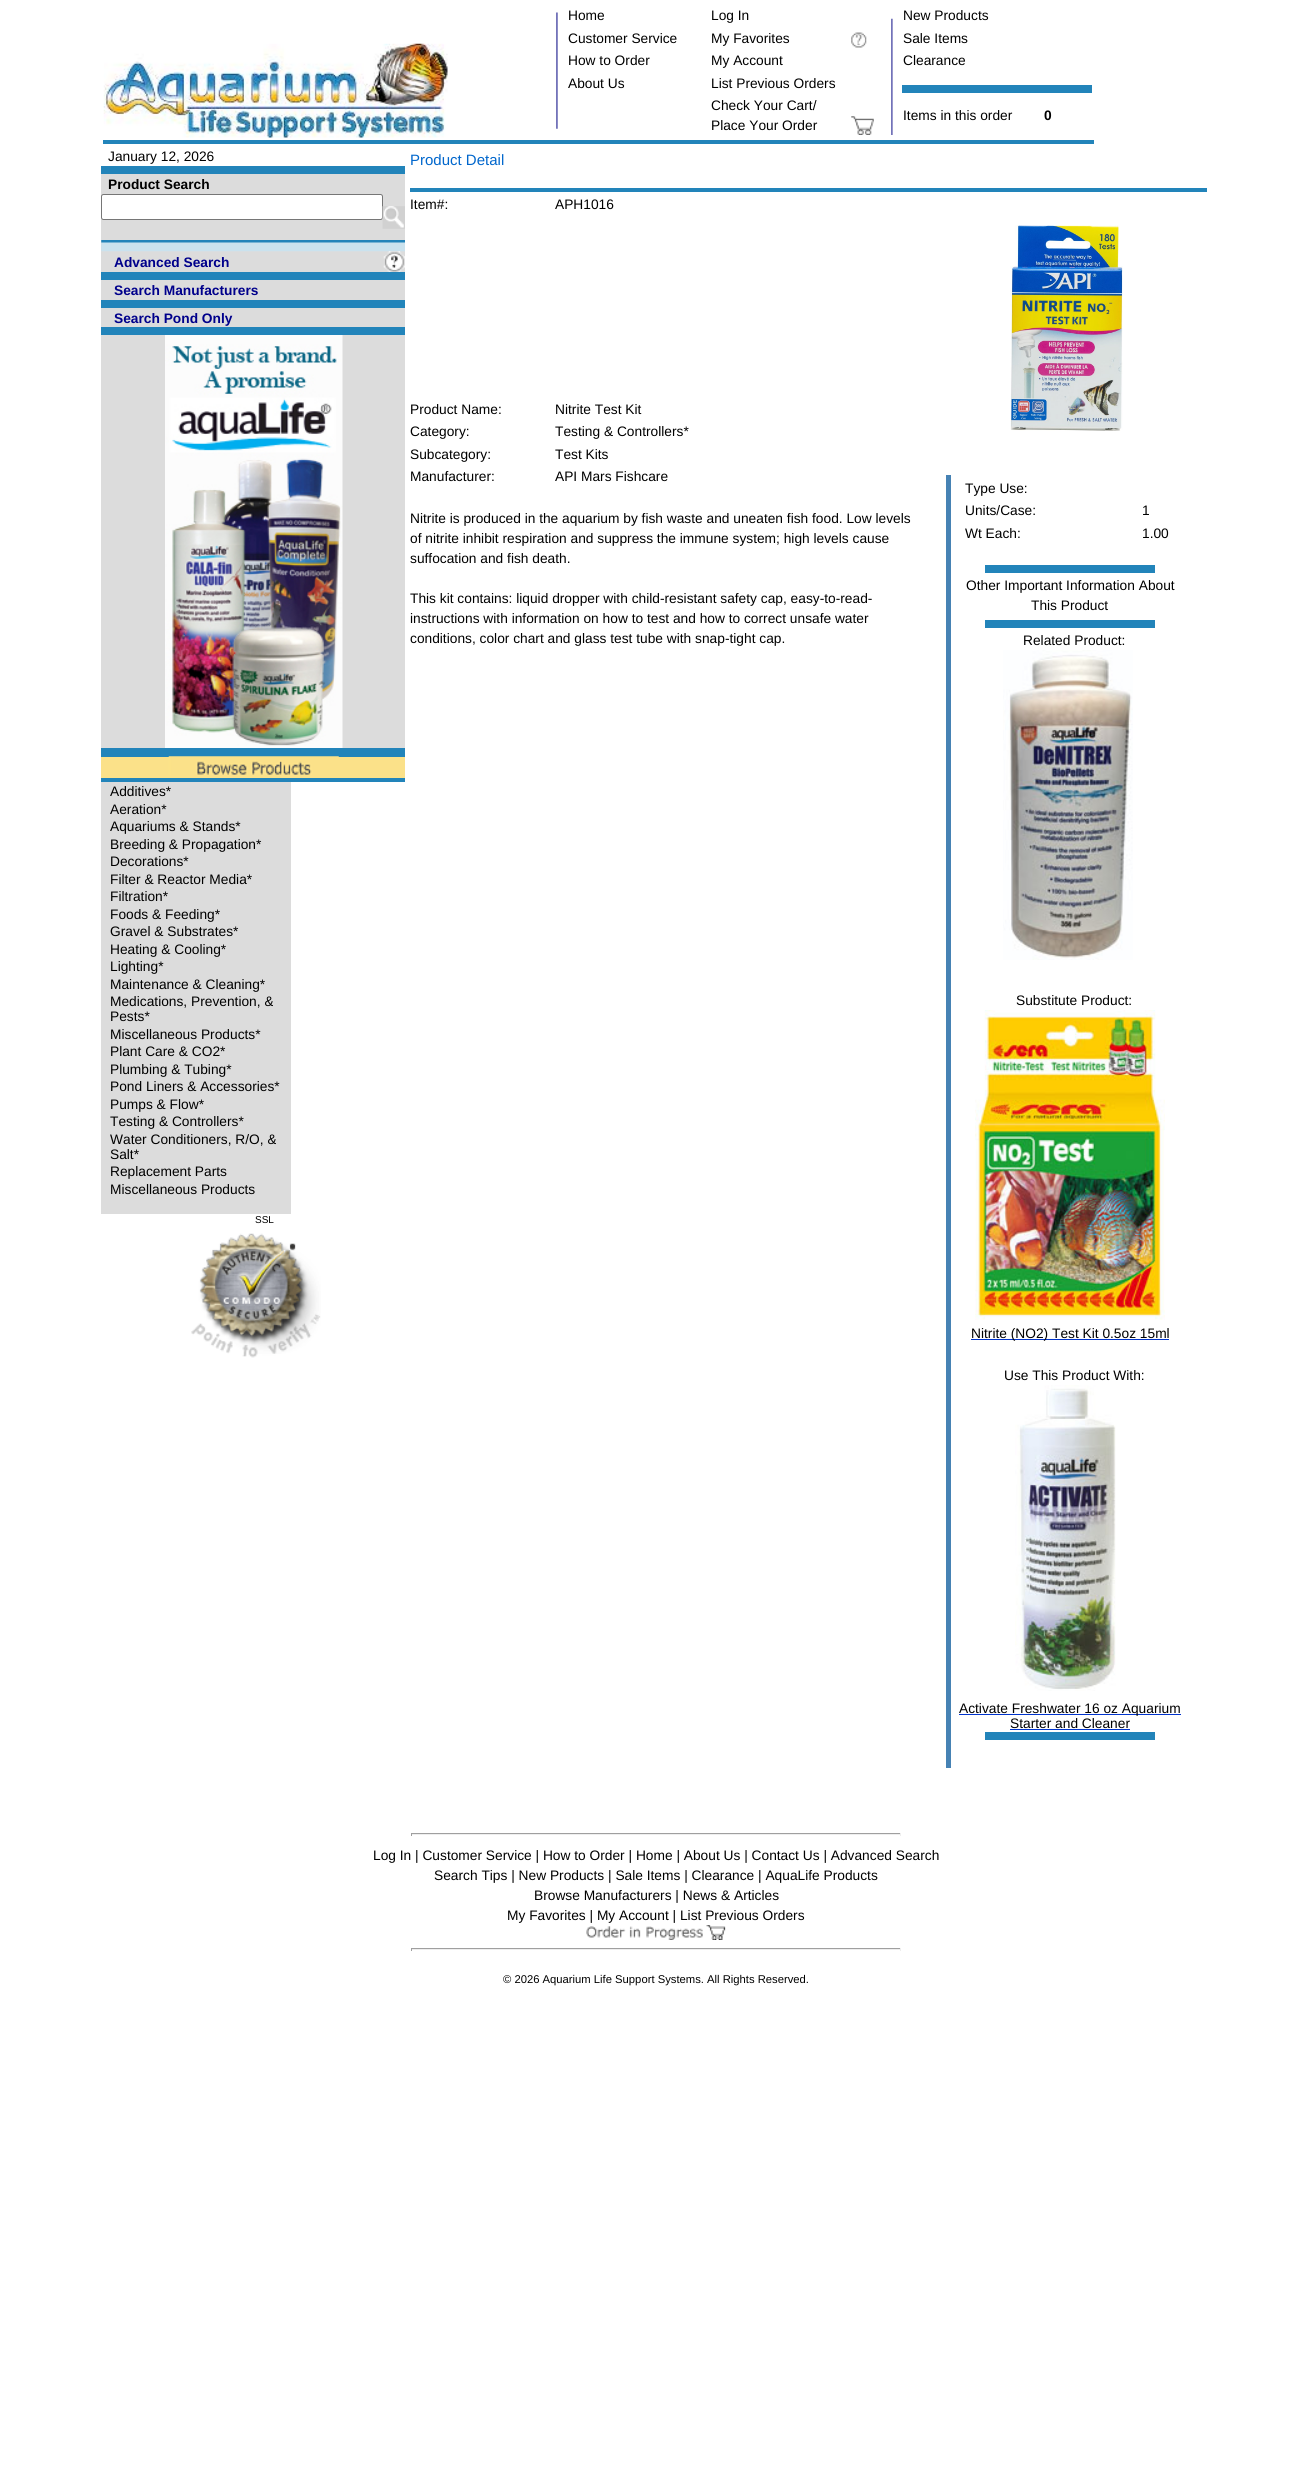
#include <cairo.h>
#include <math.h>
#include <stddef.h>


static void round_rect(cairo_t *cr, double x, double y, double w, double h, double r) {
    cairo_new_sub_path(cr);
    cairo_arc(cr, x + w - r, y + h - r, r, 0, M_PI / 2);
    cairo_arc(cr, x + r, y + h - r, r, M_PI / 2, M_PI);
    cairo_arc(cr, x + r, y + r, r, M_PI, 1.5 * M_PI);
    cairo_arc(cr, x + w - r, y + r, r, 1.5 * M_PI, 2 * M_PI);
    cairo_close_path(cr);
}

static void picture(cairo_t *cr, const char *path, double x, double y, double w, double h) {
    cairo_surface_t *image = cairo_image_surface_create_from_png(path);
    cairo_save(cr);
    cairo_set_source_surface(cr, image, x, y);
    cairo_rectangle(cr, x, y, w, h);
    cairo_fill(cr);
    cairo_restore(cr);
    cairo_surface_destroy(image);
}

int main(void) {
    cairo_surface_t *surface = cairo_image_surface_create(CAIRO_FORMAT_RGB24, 1312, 2467);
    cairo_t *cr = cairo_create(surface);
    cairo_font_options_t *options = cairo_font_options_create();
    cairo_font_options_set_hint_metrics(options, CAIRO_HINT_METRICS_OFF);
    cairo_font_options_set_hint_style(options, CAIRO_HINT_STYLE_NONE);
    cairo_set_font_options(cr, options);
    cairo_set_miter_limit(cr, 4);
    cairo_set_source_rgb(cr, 1, 1, 1);
    cairo_paint(cr);
    picture(cr, "img1.png", 103, 43, 345, 95);
    picture(cr, "img2.png", 556, 12, 2, 117);
    cairo_select_font_face(cr, "Liberation Sans", CAIRO_FONT_SLANT_NORMAL, CAIRO_FONT_WEIGHT_NORMAL);
    cairo_set_font_size(cr, 13.75);
    cairo_set_source_rgb(cr, 0, 0, 0);
    cairo_move_to(cr, 568, 20);
    cairo_show_text(cr, "Home");
    cairo_move_to(cr, 711, 20);
    cairo_show_text(cr, "Log In");
    picture(cr, "img3.png", 891, 18, 2, 117);
    cairo_move_to(cr, 903, 20);
    cairo_show_text(cr, "New Products");
    cairo_move_to(cr, 568, 43);
    cairo_show_text(cr, "Customer Service");
    cairo_move_to(cr, 711, 43);
    cairo_show_text(cr, "My Favorites");
    picture(cr, "img4.png", 851, 32, 16, 16);
    cairo_move_to(cr, 903, 43);
    cairo_show_text(cr, "Sale Items");
    cairo_move_to(cr, 568, 65);
    cairo_show_text(cr, "How to Order");
    cairo_move_to(cr, 711, 65);
    cairo_show_text(cr, "My Account");
    cairo_move_to(cr, 903, 65);
    cairo_show_text(cr, "Clearance");
    cairo_move_to(cr, 568, 88);
    cairo_show_text(cr, "About Us");
    cairo_move_to(cr, 711, 88);
    cairo_show_text(cr, "List Previous Orders");
    cairo_set_source_rgb(cr, 0.133, 0.518, 0.729);
    cairo_rectangle(cr, 902, 85, 190, 8);
    cairo_fill(cr);
    cairo_set_source_rgb(cr, 0, 0, 0);
    cairo_move_to(cr, 711, 110);
    cairo_show_text(cr, "Check Your Cart/");
    cairo_move_to(cr, 711, 130);
    cairo_show_text(cr, "Place Your Order");
    picture(cr, "img5.png", 851, 116, 23, 19);
    cairo_move_to(cr, 903, 120);
    cairo_show_text(cr, "Items in this order");
    cairo_select_font_face(cr, "Liberation Sans", CAIRO_FONT_SLANT_NORMAL, CAIRO_FONT_WEIGHT_BOLD);
    cairo_move_to(cr, 1044, 120);
    cairo_show_text(cr, "0");
    cairo_set_source_rgb(cr, 0.133, 0.518, 0.729);
    cairo_rectangle(cr, 103, 140, 991, 4);
    cairo_fill(cr);
    cairo_set_source_rgb(cr, 0.863, 0.863, 0.863);
    cairo_rectangle(cr, 101, 174, 304, 574);
    cairo_fill(cr);
    cairo_select_font_face(cr, "Liberation Sans", CAIRO_FONT_SLANT_NORMAL, CAIRO_FONT_WEIGHT_NORMAL);
    cairo_set_source_rgb(cr, 0, 0, 0);
    cairo_move_to(cr, 108, 161);
    cairo_show_text(cr, "January 12, 2026");
    cairo_set_source_rgb(cr, 0.133, 0.518, 0.729);
    cairo_rectangle(cr, 101, 166, 304, 8);
    cairo_fill(cr);
    cairo_select_font_face(cr, "Liberation Sans", CAIRO_FONT_SLANT_NORMAL, CAIRO_FONT_WEIGHT_BOLD);
    cairo_set_source_rgb(cr, 0, 0, 0);
    cairo_move_to(cr, 108, 189);
    cairo_show_text(cr, "Product Search");
    cairo_set_source_rgb(cr, 1, 1, 1);
    round_rect(cr, 101.5, 194.5, 281, 25, 2);
    cairo_fill_preserve(cr);
    cairo_set_source_rgb(cr, 0.463, 0.463, 0.463);
    cairo_set_line_width(cr, 1);
    cairo_stroke(cr);
    picture(cr, "img6.png", 382, 206, 23, 23);
    picture(cr, "img7.png", 101, 240, 304, 12);
    cairo_set_source_rgb(cr, 0, 0, 0.545);
    cairo_move_to(cr, 114, 267);
    cairo_show_text(cr, "Advanced Search");
    picture(cr, "img8.png", 383, 251, 22, 21);
    cairo_set_source_rgb(cr, 0.133, 0.518, 0.729);
    cairo_rectangle(cr, 101, 272, 304, 8);
    cairo_fill(cr);
    cairo_set_source_rgb(cr, 0, 0, 0.545);
    cairo_move_to(cr, 114, 295);
    cairo_show_text(cr, "Search Manufacturers");
    cairo_set_source_rgb(cr, 0.133, 0.518, 0.729);
    cairo_rectangle(cr, 101, 300, 304, 8);
    cairo_fill(cr);
    cairo_set_source_rgb(cr, 0, 0, 0.545);
    cairo_move_to(cr, 114, 323);
    cairo_show_text(cr, "Search Pond Only");
    cairo_set_source_rgb(cr, 0.133, 0.518, 0.729);
    cairo_rectangle(cr, 101, 327, 304, 8);
    cairo_fill(cr);
    picture(cr, "img9.png", 165, 335, 178, 413);
    cairo_rectangle(cr, 101, 748, 304, 9);
    cairo_fill(cr);
    cairo_set_source_rgb(cr, 0.984, 0.882, 0.537);
    cairo_rectangle(cr, 101, 757, 304, 21);
    cairo_fill(cr);
    picture(cr, "img10.png", 168, 756, 171, 19);
    cairo_set_source_rgb(cr, 0.133, 0.518, 0.729);
    cairo_rectangle(cr, 101, 778, 304, 4);
    cairo_fill(cr);
    cairo_set_source_rgb(cr, 0.863, 0.863, 0.863);
    cairo_rectangle(cr, 101, 782, 190, 432);
    cairo_fill(cr);
    cairo_select_font_face(cr, "Liberation Sans", CAIRO_FONT_SLANT_NORMAL, CAIRO_FONT_WEIGHT_NORMAL);
    cairo_set_source_rgb(cr, 0, 0, 0);
    cairo_move_to(cr, 110, 796);
    cairo_show_text(cr, "Additives*");
    cairo_move_to(cr, 110, 814);
    cairo_show_text(cr, "Aeration*");
    cairo_move_to(cr, 110, 831);
    cairo_show_text(cr, "Aquariums & Stands*");
    cairo_move_to(cr, 110, 849);
    cairo_show_text(cr, "Breeding & Propagation*");
    cairo_move_to(cr, 110, 866);
    cairo_show_text(cr, "Decorations*");
    cairo_move_to(cr, 110, 884);
    cairo_show_text(cr, "Filter & Reactor Media*");
    cairo_move_to(cr, 110, 901);
    cairo_show_text(cr, "Filtration*");
    cairo_move_to(cr, 110, 919);
    cairo_show_text(cr, "Foods & Feeding*");
    cairo_move_to(cr, 110, 936);
    cairo_show_text(cr, "Gravel & Substrates*");
    cairo_move_to(cr, 110, 954);
    cairo_show_text(cr, "Heating & Cooling*");
    cairo_move_to(cr, 110, 971);
    cairo_show_text(cr, "Lighting*");
    cairo_move_to(cr, 110, 989);
    cairo_show_text(cr, "Maintenance & Cleaning*");
    cairo_move_to(cr, 110, 1006);
    cairo_show_text(cr, "Medications, Prevention, &");
    cairo_move_to(cr, 110, 1021);
    cairo_show_text(cr, "Pests*");
    cairo_move_to(cr, 110, 1039);
    cairo_show_text(cr, "Miscellaneous Products*");
    cairo_move_to(cr, 110, 1056);
    cairo_show_text(cr, "Plant Care & CO2*");
    cairo_move_to(cr, 110, 1074);
    cairo_show_text(cr, "Plumbing & Tubing*");
    cairo_move_to(cr, 110, 1091);
    cairo_show_text(cr, "Pond Liners & Accessories*");
    cairo_move_to(cr, 110, 1109);
    cairo_show_text(cr, "Pumps & Flow*");
    cairo_move_to(cr, 110, 1126);
    cairo_show_text(cr, "Testing & Controllers*");
    cairo_move_to(cr, 110, 1144);
    cairo_show_text(cr, "Water Conditioners, R/O, &");
    cairo_move_to(cr, 110, 1159);
    cairo_show_text(cr, "Salt*");
    cairo_move_to(cr, 110, 1176);
    cairo_show_text(cr, "Replacement Parts");
    cairo_move_to(cr, 110, 1194);
    cairo_show_text(cr, "Miscellaneous Products");
    cairo_set_font_size(cr, 10);
    cairo_move_to(cr, 255, 1223);
    cairo_show_text(cr, "SSL");
    picture(cr, "img11.png", 191, 1233, 130, 125);
    cairo_set_font_size(cr, 15);
    cairo_set_source_rgb(cr, 0, 0.4, 0.8);
    cairo_move_to(cr, 410, 165);
    cairo_show_text(cr, "Product Detail");
    cairo_set_source_rgb(cr, 0.133, 0.518, 0.729);
    cairo_rectangle(cr, 410, 188, 797, 4);
    cairo_fill(cr);
    cairo_set_font_size(cr, 13.75);
    cairo_set_source_rgb(cr, 0, 0, 0);
    cairo_move_to(cr, 410, 209);
    cairo_show_text(cr, "Item#:");
    cairo_move_to(cr, 555, 209);
    cairo_show_text(cr, "APH1016");
    picture(cr, "img12.png", 1010, 225, 113, 206);
    cairo_set_source_rgb(cr, 0.275, 0.51, 0.706);
    cairo_rectangle(cr, 946, 475, 5, 1293);
    cairo_fill(cr);
    cairo_set_source_rgb(cr, 0, 0, 0);
    cairo_move_to(cr, 965, 493);
    cairo_show_text(cr, "Type Use:");
    cairo_move_to(cr, 965, 515);
    cairo_show_text(cr, "Units/Case:");
    cairo_move_to(cr, 1142, 515);
    cairo_show_text(cr, "1");
    cairo_move_to(cr, 965, 538);
    cairo_show_text(cr, "Wt Each:");
    cairo_move_to(cr, 1142, 538);
    cairo_show_text(cr, "1.00");
    cairo_set_source_rgb(cr, 0.133, 0.518, 0.729);
    cairo_rectangle(cr, 985, 565, 170, 8);
    cairo_fill(cr);
    cairo_set_source_rgb(cr, 0, 0, 0);
    cairo_move_to(cr, 966, 590);
    cairo_show_text(cr, "Other Important Information About");
    cairo_move_to(cr, 1031, 610);
    cairo_show_text(cr, "This Product");
    cairo_set_source_rgb(cr, 0.133, 0.518, 0.729);
    cairo_rectangle(cr, 985, 620, 170, 8);
    cairo_fill(cr);
    cairo_set_source_rgb(cr, 0, 0, 0);
    cairo_move_to(cr, 1023, 645);
    cairo_show_text(cr, "Related Product:");
    picture(cr, "img13.png", 1003, 650, 130, 310);
    cairo_move_to(cr, 1016, 1005);
    cairo_show_text(cr, "Substitute Product:");
    picture(cr, "img14.png", 975, 1010, 190, 310);
    cairo_set_source_rgb(cr, 0, 0.2, 0.8);
    cairo_rectangle(cr, 971, 1339, 198, 1);
    cairo_fill(cr);
    cairo_set_source_rgb(cr, 0, 0, 0);
    cairo_move_to(cr, 971, 1338);
    cairo_show_text(cr, "Nitrite (NO2) Test Kit 0.5oz 15ml");
    cairo_move_to(cr, 1004, 1380);
    cairo_show_text(cr, "Use This Product With:");
    picture(cr, "img15.png", 1015, 1385, 101, 306);
    cairo_set_source_rgb(cr, 0, 0.2, 0.8);
    cairo_rectangle(cr, 959, 1714, 222, 1);
    cairo_fill(cr);
    cairo_set_source_rgb(cr, 0, 0, 0);
    cairo_move_to(cr, 959, 1713);
    cairo_show_text(cr, "Activate Freshwater 16 oz Aquarium");
    cairo_move_to(cr, 1010, 1728);
    cairo_show_text(cr, "Starter and Cleaner");
    cairo_set_source_rgb(cr, 0, 0.2, 0.8);
    cairo_rectangle(cr, 1010, 1729, 120, 1);
    cairo_fill(cr);
    cairo_set_source_rgb(cr, 0.133, 0.518, 0.729);
    cairo_rectangle(cr, 985, 1732, 170, 8);
    cairo_fill(cr);
    cairo_set_source_rgb(cr, 0, 0, 0);
    cairo_move_to(cr, 410, 414);
    cairo_show_text(cr, "Product Name:");
    cairo_move_to(cr, 555, 414);
    cairo_show_text(cr, "Nitrite Test Kit");
    cairo_move_to(cr, 410, 436);
    cairo_show_text(cr, "Category:");
    cairo_move_to(cr, 555, 436);
    cairo_show_text(cr, "Testing & Controllers*");
    cairo_move_to(cr, 410, 459);
    cairo_show_text(cr, "Subcategory:");
    cairo_move_to(cr, 555, 459);
    cairo_show_text(cr, "Test Kits");
    cairo_move_to(cr, 410, 481);
    cairo_show_text(cr, "Manufacturer:");
    cairo_move_to(cr, 555, 481);
    cairo_show_text(cr, "API Mars Fishcare");
    cairo_move_to(cr, 410, 523);
    cairo_show_text(cr, "Nitrite is produced in the aquarium by fish waste and uneaten fish food. Low levels");
    cairo_move_to(cr, 410, 543);
    cairo_show_text(cr, "of nitrite inhibit respiration and suppress the immune system; high levels cause");
    cairo_move_to(cr, 410, 563);
    cairo_show_text(cr, "suffocation and fish death.");
    cairo_move_to(cr, 410, 603);
    cairo_show_text(cr, "This kit contains: liquid dropper with child-resistant safety cap, easy-to-read-");
    cairo_move_to(cr, 410, 623);
    cairo_show_text(cr, "instructions with information on how to test and how to correct unsafe water");
    cairo_move_to(cr, 410, 643);
    cairo_show_text(cr, "conditions, color chart and glass test tube with snap-tight cap.");
    cairo_set_source_rgb(cr, 0.624, 0.624, 0.624);
    cairo_rectangle(cr, 411, 1833, 490, 1);
    cairo_fill(cr);
    cairo_set_source_rgb(cr, 0.933, 0.933, 0.933);
    cairo_rectangle(cr, 900, 1833, 1, 3);
    cairo_fill(cr);
    cairo_rectangle(cr, 411, 1834, 490, 1);
    cairo_fill(cr);
    cairo_set_source_rgb(cr, 0.624, 0.624, 0.624);
    cairo_rectangle(cr, 411, 1833, 1, 3);
    cairo_fill(cr);
    cairo_set_source_rgb(cr, 0, 0, 0);
    cairo_move_to(cr, 373, 1860);
    cairo_show_text(cr, "Log In | Customer Service | How to Order | Home | About Us | Contact Us | Advanced Search");
    cairo_move_to(cr, 434, 1880);
    cairo_show_text(cr, "Search Tips | New Products | Sale Items | Clearance | AquaLife Products");
    cairo_move_to(cr, 534, 1900);
    cairo_show_text(cr, "Browse Manufacturers | News & Articles");
    cairo_move_to(cr, 507, 1920);
    cairo_show_text(cr, "My Favorites | My Account | List Previous Orders");
    picture(cr, "img16.png", 586, 1925, 140, 15);
    cairo_set_source_rgb(cr, 0.624, 0.624, 0.624);
    cairo_rectangle(cr, 411, 1948, 490, 1);
    cairo_fill(cr);
    cairo_set_source_rgb(cr, 0.933, 0.933, 0.933);
    cairo_rectangle(cr, 900, 1948, 1, 3);
    cairo_fill(cr);
    cairo_rectangle(cr, 411, 1949, 490, 1);
    cairo_fill(cr);
    cairo_set_source_rgb(cr, 0.624, 0.624, 0.624);
    cairo_rectangle(cr, 411, 1948, 1, 3);
    cairo_fill(cr);
    cairo_set_font_size(cr, 11.25);
    cairo_set_source_rgb(cr, 0, 0, 0);
    cairo_move_to(cr, 503, 1983);
    cairo_show_text(cr, "© 2026 Aquarium Life Support Systems. All Rights Reserved.");
    cairo_surface_write_to_png(surface, "page.png");
    cairo_font_options_destroy(options);
    cairo_destroy(cr);
    cairo_surface_destroy(surface);
    return 0;
}
